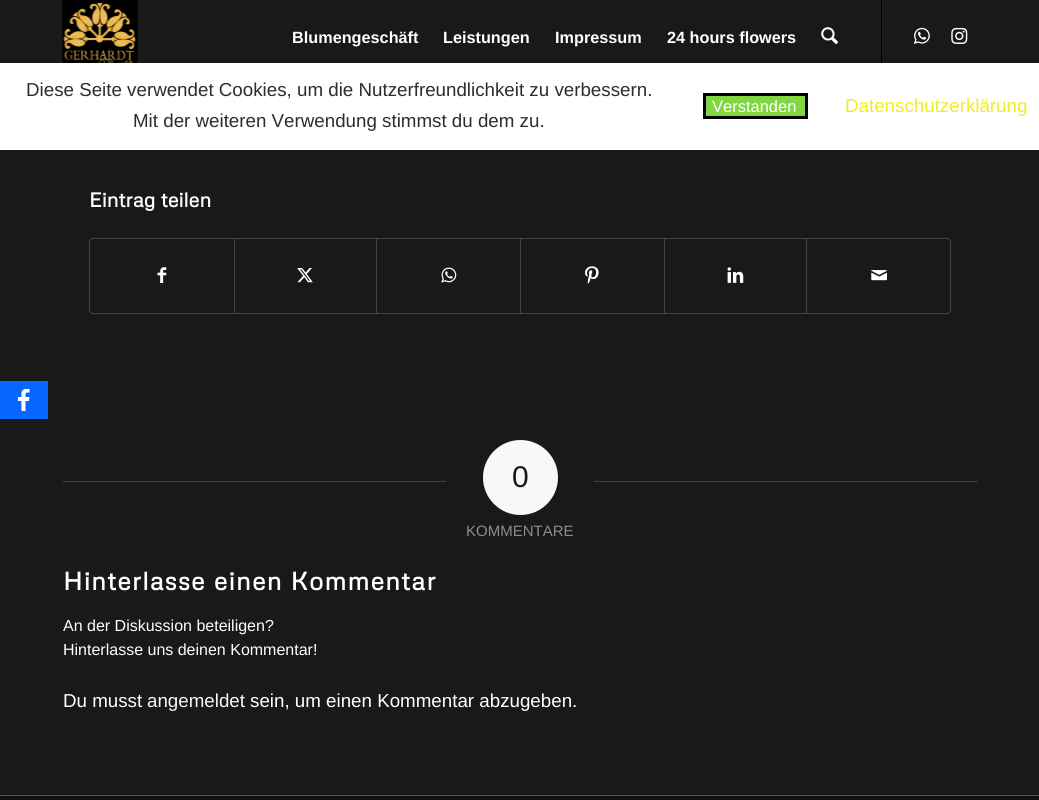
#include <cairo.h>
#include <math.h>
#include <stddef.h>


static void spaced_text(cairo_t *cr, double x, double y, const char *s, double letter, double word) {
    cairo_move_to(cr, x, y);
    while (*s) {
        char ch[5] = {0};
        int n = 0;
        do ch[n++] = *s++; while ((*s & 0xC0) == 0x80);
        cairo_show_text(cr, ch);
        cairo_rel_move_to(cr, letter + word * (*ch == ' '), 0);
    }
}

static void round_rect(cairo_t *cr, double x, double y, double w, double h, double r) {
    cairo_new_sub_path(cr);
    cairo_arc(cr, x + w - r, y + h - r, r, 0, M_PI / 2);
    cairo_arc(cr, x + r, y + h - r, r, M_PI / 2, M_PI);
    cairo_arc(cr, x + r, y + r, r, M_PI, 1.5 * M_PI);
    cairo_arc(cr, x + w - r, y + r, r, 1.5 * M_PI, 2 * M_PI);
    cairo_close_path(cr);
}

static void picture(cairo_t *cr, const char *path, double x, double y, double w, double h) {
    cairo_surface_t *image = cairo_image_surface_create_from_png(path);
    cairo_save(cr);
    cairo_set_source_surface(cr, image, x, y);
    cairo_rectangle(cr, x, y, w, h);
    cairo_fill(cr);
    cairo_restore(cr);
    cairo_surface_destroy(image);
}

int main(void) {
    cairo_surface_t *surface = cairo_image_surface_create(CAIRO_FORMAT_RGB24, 1039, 800);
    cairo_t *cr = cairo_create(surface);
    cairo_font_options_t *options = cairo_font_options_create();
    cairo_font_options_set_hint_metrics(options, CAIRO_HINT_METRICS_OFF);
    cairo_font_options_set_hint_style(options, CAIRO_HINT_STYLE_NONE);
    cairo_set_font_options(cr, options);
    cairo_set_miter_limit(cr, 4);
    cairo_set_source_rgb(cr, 0.098, 0.098, 0.098);
    cairo_paint(cr);
    picture(cr, "img1.png", 62, 0, 76, 63);
    cairo_set_source_rgb(cr, 0, 0, 0);
    cairo_rectangle(cr, 881, 0, 1, 63);
    cairo_fill(cr);
    cairo_select_font_face(cr, "Liberation Sans", CAIRO_FONT_SLANT_NORMAL, CAIRO_FONT_WEIGHT_BOLD);
    cairo_set_font_size(cr, 16.25);
    cairo_set_source_rgb(cr, 1, 1, 1);
    cairo_move_to(cr, 292, 43);
    cairo_show_text(cr, "Blumengeschäft");
    cairo_move_to(cr, 443, 43);
    cairo_show_text(cr, "Leistungen");
    cairo_move_to(cr, 555, 43);
    cairo_show_text(cr, "Impressum");
    cairo_move_to(cr, 667, 43);
    cairo_show_text(cr, "24 hours flowers");
    picture(cr, "img2.png", 821, 27, 17, 17);
    picture(cr, "img3.png", 913, 27, 17, 17);
    picture(cr, "img4.png", 951, 27, 17, 17);
    cairo_select_font_face(cr, "Metrophobic", CAIRO_FONT_SLANT_NORMAL, CAIRO_FONT_WEIGHT_BOLD);
    cairo_set_font_size(cr, 20);
    cairo_move_to(cr, 89, 207);
    cairo_show_text(cr, "Eintrag teilen");
    round_rect(cr, 89.5, 238.5, 861, 75, 3.5);
    cairo_set_source_rgb(cr, 0.267, 0.267, 0.267);
    cairo_set_line_width(cr, 1);
    cairo_stroke(cr);
    picture(cr, "img5.png", 157, 267, 10, 16);
    cairo_rectangle(cr, 234, 239, 1, 74);
    cairo_fill(cr);
    picture(cr, "img6.png", 297, 268, 16, 15);
    cairo_rectangle(cr, 376, 239, 1, 74);
    cairo_fill(cr);
    picture(cr, "img7.png", 441, 267, 16, 16);
    cairo_rectangle(cr, 520, 239, 1, 74);
    cairo_fill(cr);
    picture(cr, "img8.png", 585, 266, 14, 18);
    cairo_rectangle(cr, 664, 239, 1, 74);
    cairo_fill(cr);
    picture(cr, "img9.png", 727, 267, 17, 16);
    cairo_rectangle(cr, 806, 239, 1, 74);
    cairo_fill(cr);
    picture(cr, "img10.png", 871, 270, 16, 11);
    cairo_rectangle(cr, 63, 481, 383, 1);
    cairo_fill(cr);
    cairo_set_source_rgb(cr, 0.969, 0.969, 0.969);
    cairo_arc(cr, 520.5, 477.5, 37.5, 0, 2 * M_PI);
    cairo_fill(cr);
    cairo_select_font_face(cr, "Liberation Sans", CAIRO_FONT_SLANT_NORMAL, CAIRO_FONT_WEIGHT_NORMAL);
    cairo_set_font_size(cr, 30);
    cairo_set_source_rgb(cr, 0.098, 0.098, 0.098);
    cairo_move_to(cr, 512, 487);
    cairo_show_text(cr, "0");
    cairo_set_source_rgb(cr, 0.267, 0.267, 0.267);
    cairo_rectangle(cr, 594, 481, 384, 1);
    cairo_fill(cr);
    cairo_set_font_size(cr, 15);
    cairo_set_source_rgb(cr, 0.549, 0.549, 0.549);
    cairo_move_to(cr, 466, 536);
    cairo_show_text(cr, "KOMMENTARE");
    cairo_select_font_face(cr, "Metrophobic", CAIRO_FONT_SLANT_NORMAL, CAIRO_FONT_WEIGHT_BOLD);
    cairo_set_font_size(cr, 25);
    cairo_set_source_rgb(cr, 1, 1, 1);
    spaced_text(cr, 63, 590, "Hinterlasse einen Kommentar", 1.25, 0);
    cairo_select_font_face(cr, "Liberation Sans", CAIRO_FONT_SLANT_NORMAL, CAIRO_FONT_WEIGHT_NORMAL);
    cairo_set_font_size(cr, 16);
    cairo_move_to(cr, 63, 631);
    cairo_show_text(cr, "An der Diskussion beteiligen?");
    cairo_move_to(cr, 63, 655);
    cairo_show_text(cr, "Hinterlasse uns deinen Kommentar!");
    cairo_set_font_size(cr, 18.75);
    cairo_move_to(cr, 63, 707);
    cairo_show_text(cr, "Du musst");
    cairo_set_source_rgb(cr, 0.969, 0.969, 0.969);
    cairo_move_to(cr, 147, 707);
    cairo_show_text(cr, "angemeldet");
    cairo_set_source_rgb(cr, 1, 1, 1);
    cairo_move_to(cr, 250, 707);
    cairo_show_text(cr, "sein, um einen Kommentar abzugeben.");
    cairo_set_source_rgb(cr, 0.067, 0.067, 0.067);
    cairo_rectangle(cr, 0, 796, 1039, 4);
    cairo_fill(cr);
    cairo_set_source_rgb(cr, 0.333, 0.333, 0.333);
    cairo_rectangle(cr, 0, 795, 1039, 1);
    cairo_fill(cr);
    cairo_set_source_rgb(cr, 1, 1, 1);
    cairo_rectangle(cr, 0, 63, 1039, 87);
    cairo_fill(cr);
    cairo_set_source_rgb(cr, 0.176, 0.176, 0.176);
    cairo_move_to(cr, 26, 96);
    cairo_show_text(cr, "Diese Seite verwendet Cookies, um die Nutzerfreundlichkeit zu verbessern.");
    cairo_move_to(cr, 133, 127);
    cairo_show_text(cr, "Mit der weiteren Verwendung stimmst du dem zu.");
    cairo_set_source_rgb(cr, 0.506, 0.843, 0.259);
    cairo_rectangle(cr, 704.5, 94.5, 102, 23);
    cairo_fill_preserve(cr);
    cairo_set_source_rgb(cr, 0, 0, 0);
    cairo_set_line_width(cr, 3);
    cairo_stroke(cr);
    cairo_set_font_size(cr, 16.5);
    cairo_set_source_rgb(cr, 1, 1, 1);
    cairo_move_to(cr, 712, 112);
    cairo_show_text(cr, "Verstanden");
    cairo_set_font_size(cr, 18.75);
    cairo_set_source_rgb(cr, 0.933, 0.933, 0.133);
    cairo_move_to(cr, 845, 112);
    cairo_show_text(cr, "Datenschutzerklärung");
    cairo_set_source_rgb(cr, 0.031, 0.4, 1);
    cairo_rectangle(cr, 0, 381, 48, 38);
    cairo_fill(cr);
    picture(cr, "img11.png", 17, 389, 13, 22);
    cairo_surface_write_to_png(surface, "page.png");
    cairo_font_options_destroy(options);
    cairo_destroy(cr);
    cairo_surface_destroy(surface);
    return 0;
}
